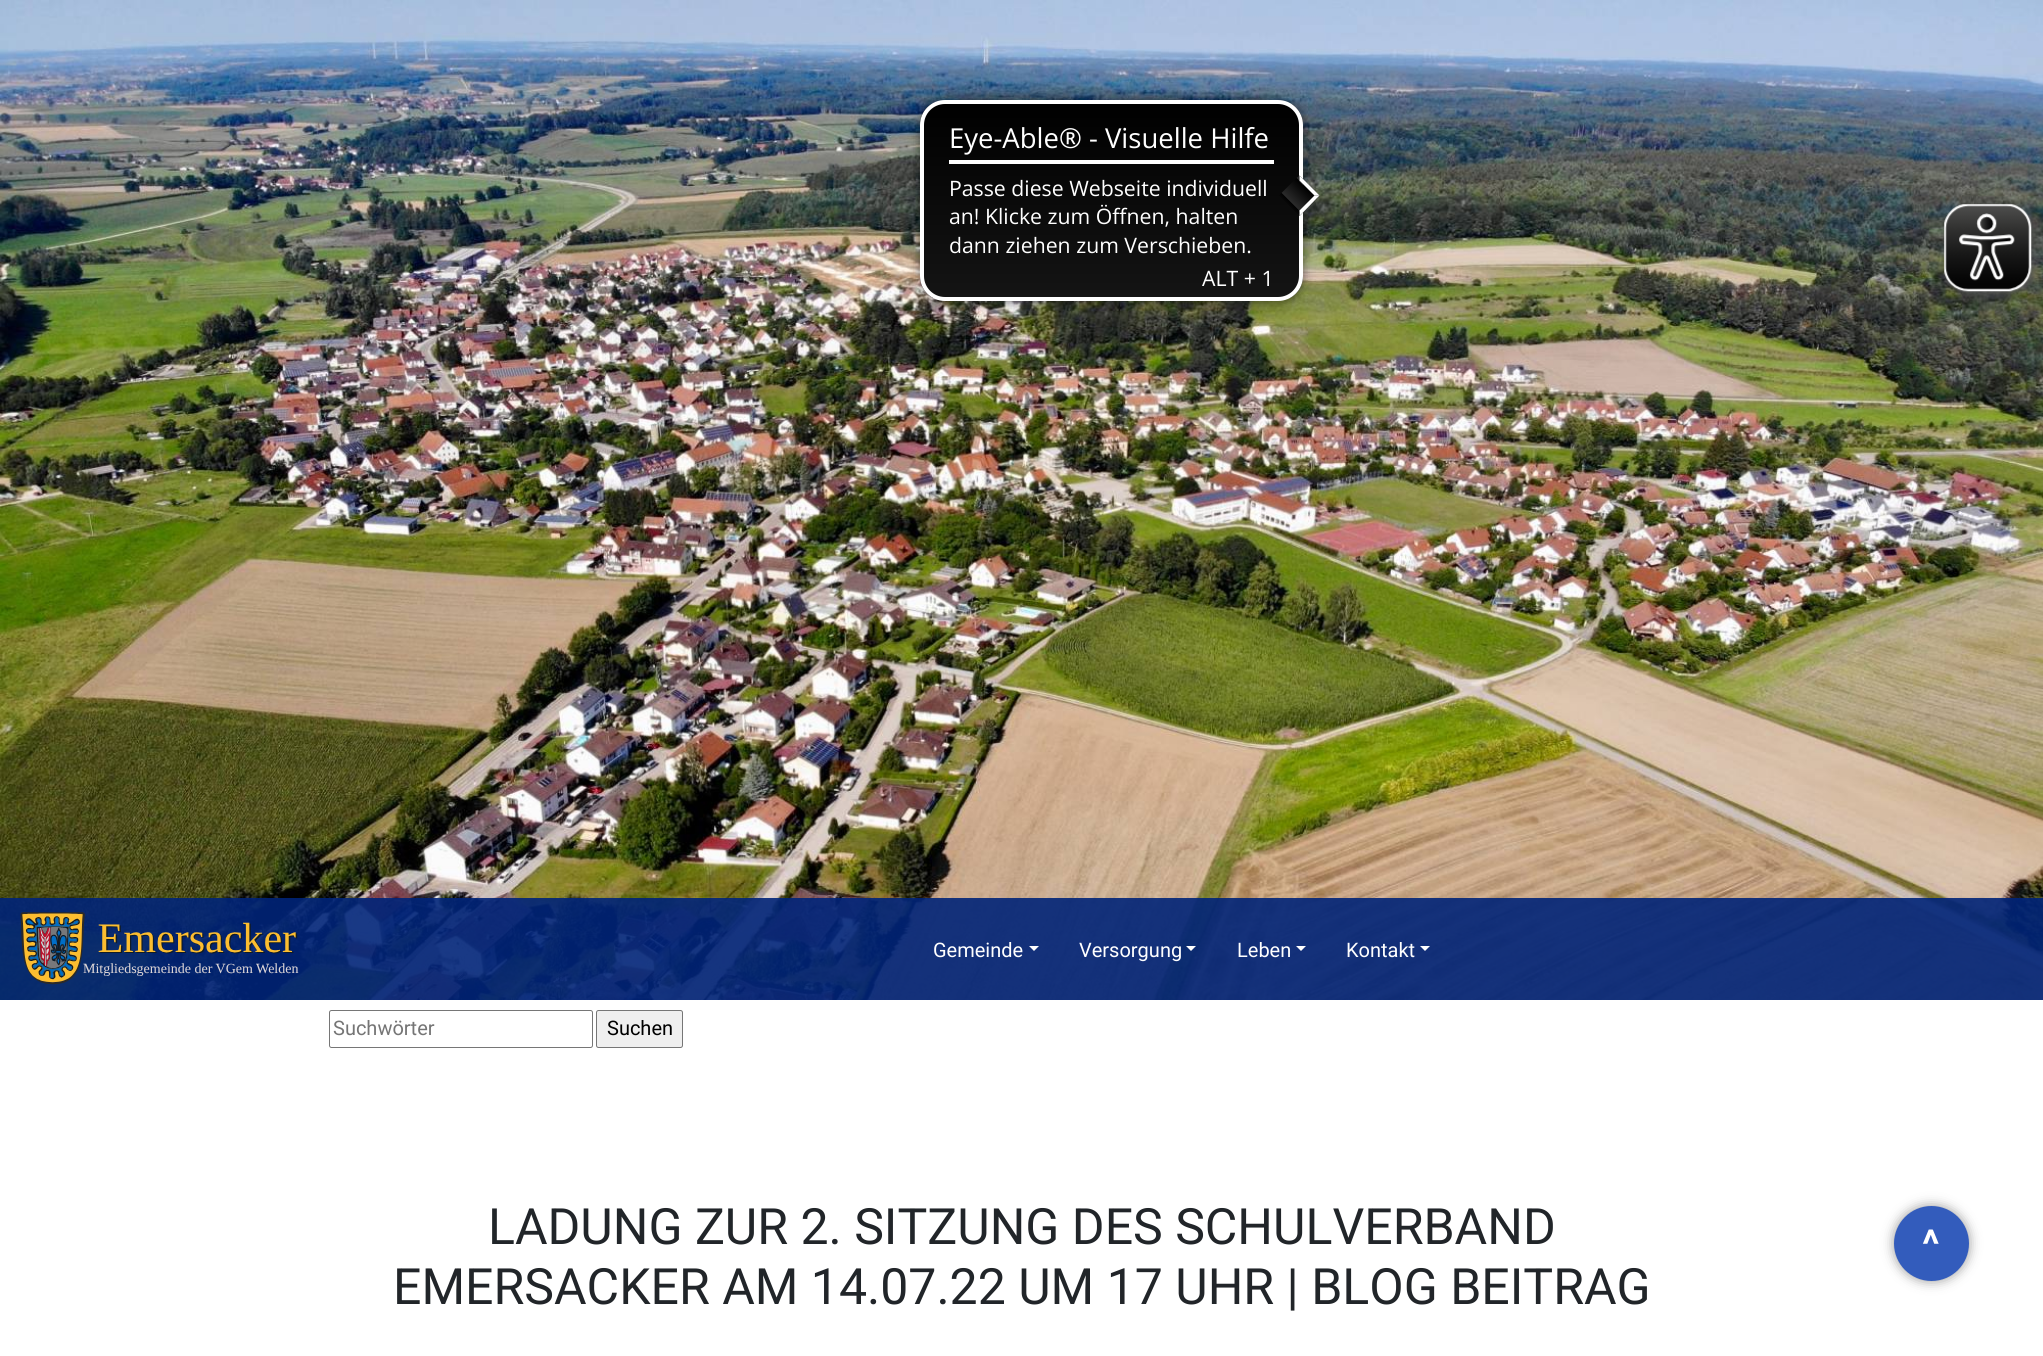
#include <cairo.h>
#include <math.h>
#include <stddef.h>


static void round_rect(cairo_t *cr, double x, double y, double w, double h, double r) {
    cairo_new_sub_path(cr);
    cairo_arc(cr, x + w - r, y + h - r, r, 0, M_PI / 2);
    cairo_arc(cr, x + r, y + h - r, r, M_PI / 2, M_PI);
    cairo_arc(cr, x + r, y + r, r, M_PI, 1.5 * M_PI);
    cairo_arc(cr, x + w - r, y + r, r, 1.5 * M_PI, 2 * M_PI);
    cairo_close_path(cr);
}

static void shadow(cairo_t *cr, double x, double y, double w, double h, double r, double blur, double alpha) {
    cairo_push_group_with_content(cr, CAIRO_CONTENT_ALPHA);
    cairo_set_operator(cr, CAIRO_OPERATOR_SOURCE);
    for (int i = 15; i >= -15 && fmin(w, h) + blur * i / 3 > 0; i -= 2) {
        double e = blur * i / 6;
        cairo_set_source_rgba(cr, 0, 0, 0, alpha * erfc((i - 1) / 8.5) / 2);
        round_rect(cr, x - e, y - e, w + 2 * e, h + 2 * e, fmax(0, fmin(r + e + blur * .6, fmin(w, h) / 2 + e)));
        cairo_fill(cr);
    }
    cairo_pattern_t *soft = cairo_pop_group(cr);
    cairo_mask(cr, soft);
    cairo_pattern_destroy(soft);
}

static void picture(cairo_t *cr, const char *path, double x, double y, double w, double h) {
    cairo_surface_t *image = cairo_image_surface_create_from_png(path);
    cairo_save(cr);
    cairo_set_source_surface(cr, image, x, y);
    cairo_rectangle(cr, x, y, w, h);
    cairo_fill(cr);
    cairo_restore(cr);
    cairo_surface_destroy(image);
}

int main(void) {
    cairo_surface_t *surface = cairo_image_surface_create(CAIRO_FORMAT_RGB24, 2043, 1356);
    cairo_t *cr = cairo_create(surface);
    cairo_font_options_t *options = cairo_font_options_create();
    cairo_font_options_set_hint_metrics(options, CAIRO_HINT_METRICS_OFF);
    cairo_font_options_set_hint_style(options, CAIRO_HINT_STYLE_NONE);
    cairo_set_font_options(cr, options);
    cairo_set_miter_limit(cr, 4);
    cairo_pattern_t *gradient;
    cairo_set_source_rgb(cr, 1, 1, 1);
    cairo_paint(cr);
    picture(cr, "img1.png", 0, 0, 2043, 1000);
    cairo_set_source_rgb(cr, 0, 0, 0);
    shadow(cr, 919, 99, 385, 204, 26, 5, 0.5);
    cairo_save(cr);
    round_rect(cr, 920, 100, 383, 201, 25);
    cairo_clip(cr);
    gradient = cairo_pattern_create_linear(1111, 103, 1111, 297);
    cairo_pattern_add_color_stop_rgba(gradient, 0, 0, 0, 0, 1);
    cairo_pattern_add_color_stop_rgba(gradient, 1, 0.078, 0.078, 0.078, 1);
    cairo_set_source(cr, gradient);
    cairo_pattern_destroy(gradient);
    cairo_rectangle(cr, 920, 104, 383, 194);
    cairo_fill(cr);
    cairo_restore(cr);
    round_rect(cr, 922, 102, 379, 197, 23);
    cairo_set_source_rgb(cr, 1, 1, 1);
    cairo_set_line_width(cr, 4);
    cairo_stroke(cr);
    cairo_rectangle(cr, 949, 160, 325, 4);
    cairo_fill(cr);
    cairo_select_font_face(cr, "Open Sans", CAIRO_FONT_SLANT_NORMAL, CAIRO_FONT_WEIGHT_NORMAL);
    cairo_set_font_size(cr, 27.5);
    cairo_move_to(cr, 949, 148);
    cairo_show_text(cr, "Eye-Able® - Visuelle Hilfe");
    cairo_set_font_size(cr, 21.25);
    cairo_move_to(cr, 949, 196);
    cairo_show_text(cr, "Passe diese Webseite individuell");
    cairo_move_to(cr, 949, 224);
    cairo_show_text(cr, "an! Klicke zum Öffnen, halten");
    cairo_move_to(cr, 949, 253);
    cairo_show_text(cr, "dann ziehen zum Verschieben.");
    gradient = cairo_pattern_create_linear(1322, 173, 1307, 188);
    cairo_pattern_add_color_stop_rgba(gradient, 0, 0, 0, 0, 1);
    cairo_pattern_add_color_stop_rgba(gradient, 1, 0.169, 0.169, 0.169, 1);
    cairo_set_source(cr, gradient);
    cairo_pattern_destroy(gradient);
    cairo_new_path(cr);
    cairo_move_to(cr, 1299.5, 175.5);
    cairo_line_to(cr, 1319.5, 195.5);
    cairo_line_to(cr, 1317, 198.5);
    cairo_line_to(cr, 1296.5, 178);
    cairo_close_path(cr);
    cairo_fill(cr);
    gradient = cairo_pattern_create_linear(1307, 188, 1292, 203);
    cairo_pattern_add_color_stop_rgba(gradient, 0, 0, 0, 0, 1);
    cairo_pattern_add_color_stop_rgba(gradient, 1, 0.169, 0.169, 0.169, 1);
    cairo_set_source(cr, gradient);
    cairo_pattern_destroy(gradient);
    cairo_new_path(cr);
    cairo_move_to(cr, 1281.5, 193);
    cairo_line_to(cr, 1296.5, 178);
    cairo_line_to(cr, 1317, 198.5);
    cairo_line_to(cr, 1302, 213.5);
    cairo_close_path(cr);
    cairo_fill(cr);
    gradient = cairo_pattern_create_linear(1292, 203, 1277, 218);
    cairo_pattern_add_color_stop_rgba(gradient, 0, 0, 0, 0, 1);
    cairo_pattern_add_color_stop_rgba(gradient, 1, 0.169, 0.169, 0.169, 1);
    cairo_set_source(cr, gradient);
    cairo_pattern_destroy(gradient);
    cairo_new_path(cr);
    cairo_move_to(cr, 1302, 213.5);
    cairo_line_to(cr, 1299.5, 216);
    cairo_line_to(cr, 1279, 195.5);
    cairo_line_to(cr, 1281.5, 193);
    cairo_close_path(cr);
    cairo_fill(cr);
    cairo_set_source_rgb(cr, 1, 1, 1);
    cairo_new_path(cr);
    cairo_move_to(cr, 1299.5, 175.5);
    cairo_line_to(cr, 1319.5, 195.5);
    cairo_line_to(cr, 1314.5, 195.5);
    cairo_line_to(cr, 1299.5, 180.5);
    cairo_close_path(cr);
    cairo_fill(cr);
    cairo_new_path(cr);
    cairo_move_to(cr, 1319.5, 195.5);
    cairo_line_to(cr, 1299.5, 216);
    cairo_line_to(cr, 1299.5, 210.5);
    cairo_line_to(cr, 1314.5, 195.5);
    cairo_close_path(cr);
    cairo_fill(cr);
    cairo_move_to(cr, 1202, 286);
    cairo_show_text(cr, "ALT + 1");
    picture(cr, "img2.png", 1941, 203, 99, 98);
    cairo_set_source_rgba(cr, 0, 0.141, 0.471, 0.9);
    cairo_rectangle(cr, 0, 898, 2043, 102);
    cairo_fill(cr);
    picture(cr, "img3.png", 20, 912, 279, 73);
    cairo_select_font_face(cr, "Roboto", CAIRO_FONT_SLANT_NORMAL, CAIRO_FONT_WEIGHT_NORMAL);
    cairo_set_font_size(cr, 20);
    cairo_set_source_rgb(cr, 1, 1, 1);
    cairo_move_to(cr, 933, 957);
    cairo_show_text(cr, "Gemeinde");
    cairo_new_path(cr);
    cairo_move_to(cr, 1029, 946);
    cairo_line_to(cr, 1039, 946);
    cairo_line_to(cr, 1034, 951);
    cairo_close_path(cr);
    cairo_fill(cr);
    cairo_move_to(cr, 1079, 957);
    cairo_show_text(cr, "Versorgung");
    cairo_new_path(cr);
    cairo_move_to(cr, 1186, 946);
    cairo_line_to(cr, 1196, 946);
    cairo_line_to(cr, 1191, 951);
    cairo_close_path(cr);
    cairo_fill(cr);
    cairo_move_to(cr, 1237, 957);
    cairo_show_text(cr, "Leben");
    cairo_new_path(cr);
    cairo_move_to(cr, 1296, 946);
    cairo_line_to(cr, 1306, 946);
    cairo_line_to(cr, 1301, 951);
    cairo_close_path(cr);
    cairo_fill(cr);
    cairo_move_to(cr, 1346, 957);
    cairo_show_text(cr, "Kontakt");
    cairo_new_path(cr);
    cairo_move_to(cr, 1420, 946);
    cairo_line_to(cr, 1430, 946);
    cairo_line_to(cr, 1425, 951);
    cairo_close_path(cr);
    cairo_fill(cr);
    round_rect(cr, 329.5, 1010.5, 263, 37, 2);
    cairo_set_source_rgb(cr, 0.463, 0.463, 0.463);
    cairo_set_line_width(cr, 1);
    cairo_stroke(cr);
    cairo_set_source_rgb(cr, 0.459, 0.459, 0.459);
    cairo_move_to(cr, 333, 1035);
    cairo_show_text(cr, "Suchwörter");
    cairo_set_source_rgb(cr, 0.937, 0.937, 0.937);
    round_rect(cr, 596.5, 1010.5, 86, 37, 2);
    cairo_fill_preserve(cr);
    cairo_set_source_rgb(cr, 0.463, 0.463, 0.463);
    cairo_stroke(cr);
    cairo_set_source_rgb(cr, 0, 0, 0);
    cairo_move_to(cr, 607, 1035);
    cairo_show_text(cr, "Suchen");
    cairo_set_font_size(cr, 50);
    cairo_set_source_rgb(cr, 0.129, 0.145, 0.161);
    cairo_move_to(cr, 488, 1244);
    cairo_show_text(cr, "LADUNG ZUR 2. SITZUNG DES SCHULVERBAND");
    cairo_move_to(cr, 393, 1304);
    cairo_show_text(cr, "EMERSACKER AM 14.07.22 UM 17 UHR | BLOG BEITRAG");
    cairo_set_source_rgb(cr, 0.2, 0.2, 0.2);
    shadow(cr, 1894, 1206, 75, 75, 37.5, 6, 0.5);
    cairo_set_source_rgb(cr, 0.2, 0.361, 0.737);
    cairo_arc(cr, 1931.5, 1243.5, 37.5, 0, 2 * M_PI);
    cairo_fill(cr);
    cairo_select_font_face(cr, "Roboto", CAIRO_FONT_SLANT_NORMAL, CAIRO_FONT_WEIGHT_BOLD);
    cairo_set_font_size(cr, 40);
    cairo_set_source_rgb(cr, 1, 1, 1);
    cairo_move_to(cr, 1922, 1258);
    cairo_show_text(cr, "^");
    cairo_surface_write_to_png(surface, "page.png");
    cairo_font_options_destroy(options);
    cairo_destroy(cr);
    cairo_surface_destroy(surface);
    return 0;
}
